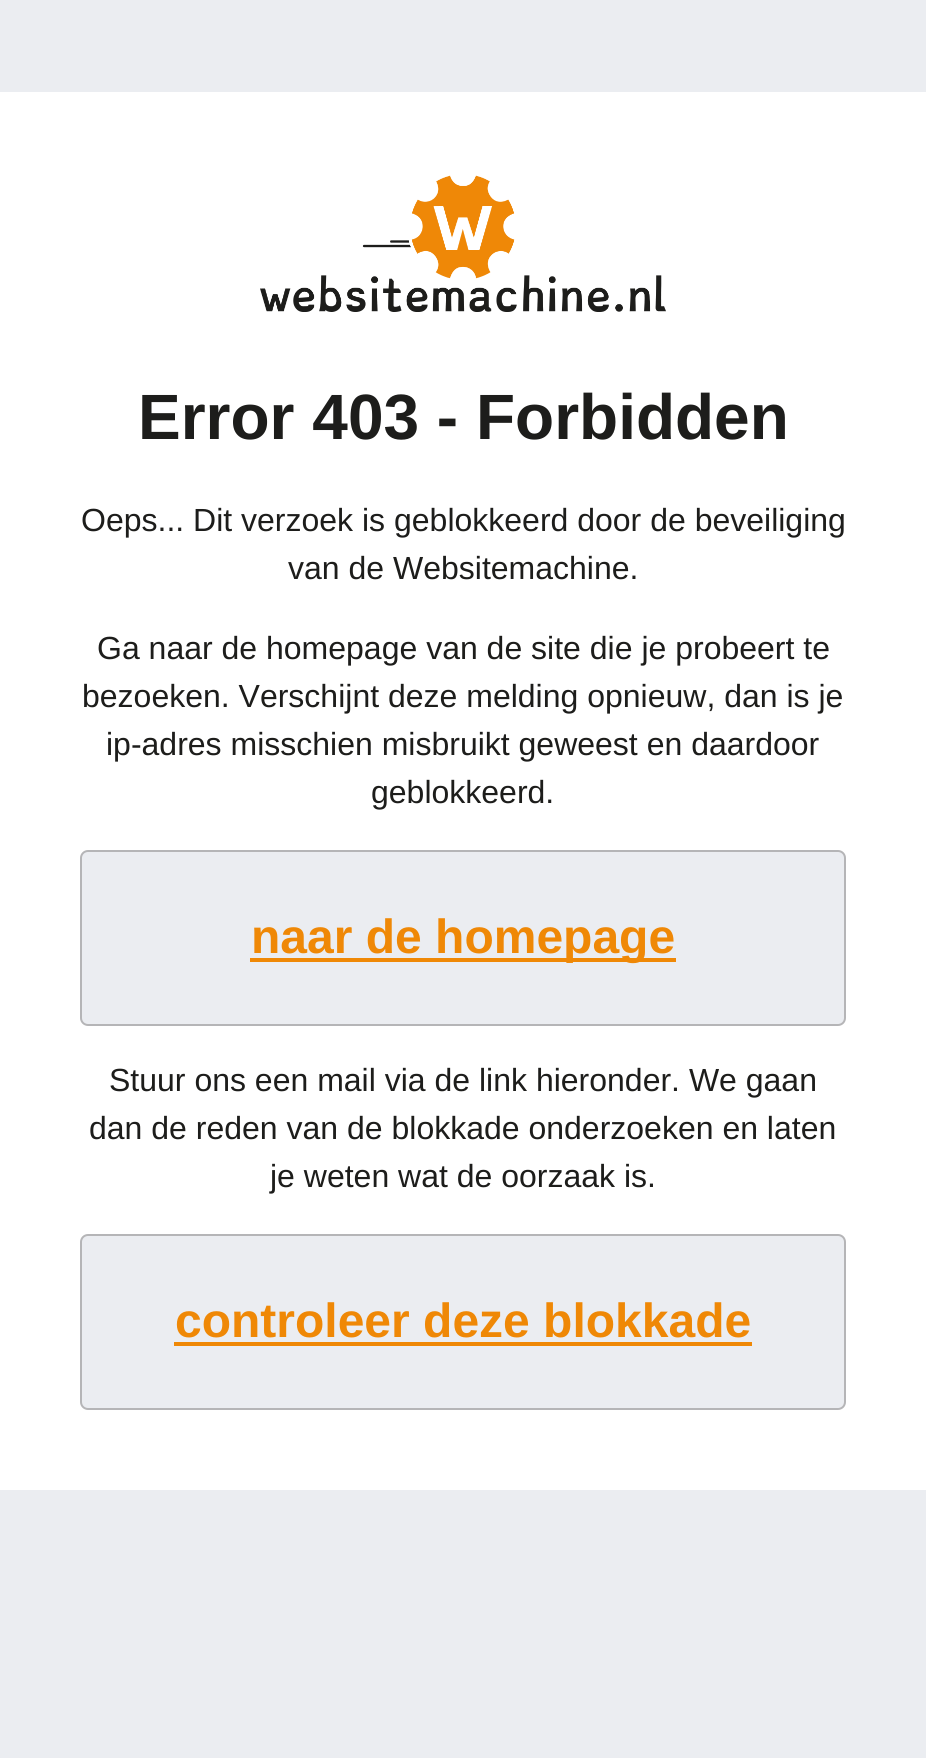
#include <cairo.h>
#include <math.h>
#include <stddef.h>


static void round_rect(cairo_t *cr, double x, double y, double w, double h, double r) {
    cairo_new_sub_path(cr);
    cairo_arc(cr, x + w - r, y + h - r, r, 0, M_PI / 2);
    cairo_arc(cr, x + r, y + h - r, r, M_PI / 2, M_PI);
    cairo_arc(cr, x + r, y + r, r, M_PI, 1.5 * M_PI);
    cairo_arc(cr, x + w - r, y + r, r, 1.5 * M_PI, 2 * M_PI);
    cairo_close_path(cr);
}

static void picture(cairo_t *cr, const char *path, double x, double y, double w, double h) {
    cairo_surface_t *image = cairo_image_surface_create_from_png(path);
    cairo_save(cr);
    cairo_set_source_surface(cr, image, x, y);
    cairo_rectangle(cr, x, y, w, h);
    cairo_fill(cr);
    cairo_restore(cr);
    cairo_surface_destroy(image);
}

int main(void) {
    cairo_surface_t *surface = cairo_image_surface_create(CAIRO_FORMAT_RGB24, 926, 1758);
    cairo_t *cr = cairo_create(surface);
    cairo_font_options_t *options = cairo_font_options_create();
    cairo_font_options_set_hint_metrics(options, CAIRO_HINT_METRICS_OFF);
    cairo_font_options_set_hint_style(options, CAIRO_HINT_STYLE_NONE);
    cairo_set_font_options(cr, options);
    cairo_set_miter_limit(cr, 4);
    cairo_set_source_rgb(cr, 0.918, 0.929, 0.945);
    cairo_paint(cr);
    cairo_set_source_rgb(cr, 1, 1, 1);
    cairo_rectangle(cr, 0, 92, 926, 1398);
    cairo_fill(cr);
    picture(cr, "img1.png", 260, 175, 406, 137);
    cairo_select_font_face(cr, "Liberation Sans", CAIRO_FONT_SLANT_NORMAL, CAIRO_FONT_WEIGHT_BOLD);
    cairo_set_font_size(cr, 64);
    cairo_set_source_rgb(cr, 0.114, 0.114, 0.106);
    cairo_move_to(cr, 138, 439);
    cairo_show_text(cr, "Error 403 - Forbidden");
    cairo_select_font_face(cr, "Liberation Sans", CAIRO_FONT_SLANT_NORMAL, CAIRO_FONT_WEIGHT_NORMAL);
    cairo_set_font_size(cr, 32);
    cairo_move_to(cr, 81, 531);
    cairo_show_text(cr, "Oeps... Dit verzoek is geblokkeerd door de beveiliging");
    cairo_move_to(cr, 288, 579);
    cairo_show_text(cr, "van de Websitemachine.");
    cairo_move_to(cr, 97, 659);
    cairo_show_text(cr, "Ga naar de homepage van de site die je probeert te");
    cairo_move_to(cr, 82, 707);
    cairo_show_text(cr, "bezoeken. Verschijnt deze melding opnieuw, dan is je");
    cairo_move_to(cr, 106, 755);
    cairo_show_text(cr, "ip-adres misschien misbruikt geweest en daardoor");
    cairo_move_to(cr, 371, 803);
    cairo_show_text(cr, "geblokkeerd.");
    cairo_set_source_rgb(cr, 0.918, 0.929, 0.945);
    round_rect(cr, 81, 851, 764, 174, 7);
    cairo_fill_preserve(cr);
    cairo_set_source_rgb(cr, 0.71, 0.71, 0.718);
    cairo_stroke(cr);
    cairo_set_source_rgb(cr, 0.937, 0.533, 0.024);
    cairo_rectangle(cr, 250, 958, 426, 4);
    cairo_fill(cr);
    cairo_select_font_face(cr, "Liberation Sans", CAIRO_FONT_SLANT_NORMAL, CAIRO_FONT_WEIGHT_BOLD);
    cairo_set_font_size(cr, 48);
    cairo_move_to(cr, 251, 953);
    cairo_show_text(cr, "naar de homepage");
    cairo_select_font_face(cr, "Liberation Sans", CAIRO_FONT_SLANT_NORMAL, CAIRO_FONT_WEIGHT_NORMAL);
    cairo_set_font_size(cr, 32);
    cairo_set_source_rgb(cr, 0.114, 0.114, 0.106);
    cairo_move_to(cr, 109, 1091);
    cairo_show_text(cr, "Stuur ons een mail via de link hieronder. We gaan");
    cairo_move_to(cr, 89, 1139);
    cairo_show_text(cr, "dan de reden van de blokkade onderzoeken en laten");
    cairo_move_to(cr, 270, 1187);
    cairo_show_text(cr, "je weten wat de oorzaak is.");
    cairo_set_source_rgb(cr, 0.918, 0.929, 0.945);
    round_rect(cr, 81, 1235, 764, 174, 7);
    cairo_fill_preserve(cr);
    cairo_set_source_rgb(cr, 0.71, 0.71, 0.718);
    cairo_stroke(cr);
    cairo_select_font_face(cr, "Liberation Sans", CAIRO_FONT_SLANT_NORMAL, CAIRO_FONT_WEIGHT_BOLD);
    cairo_set_font_size(cr, 48);
    cairo_set_source_rgb(cr, 0.937, 0.533, 0.024);
    cairo_move_to(cr, 175, 1337);
    cairo_show_text(cr, "controleer deze blokkade");
    cairo_rectangle(cr, 174, 1342, 578, 4);
    cairo_fill(cr);
    cairo_surface_write_to_png(surface, "page.png");
    cairo_font_options_destroy(options);
    cairo_destroy(cr);
    cairo_surface_destroy(surface);
    return 0;
}
